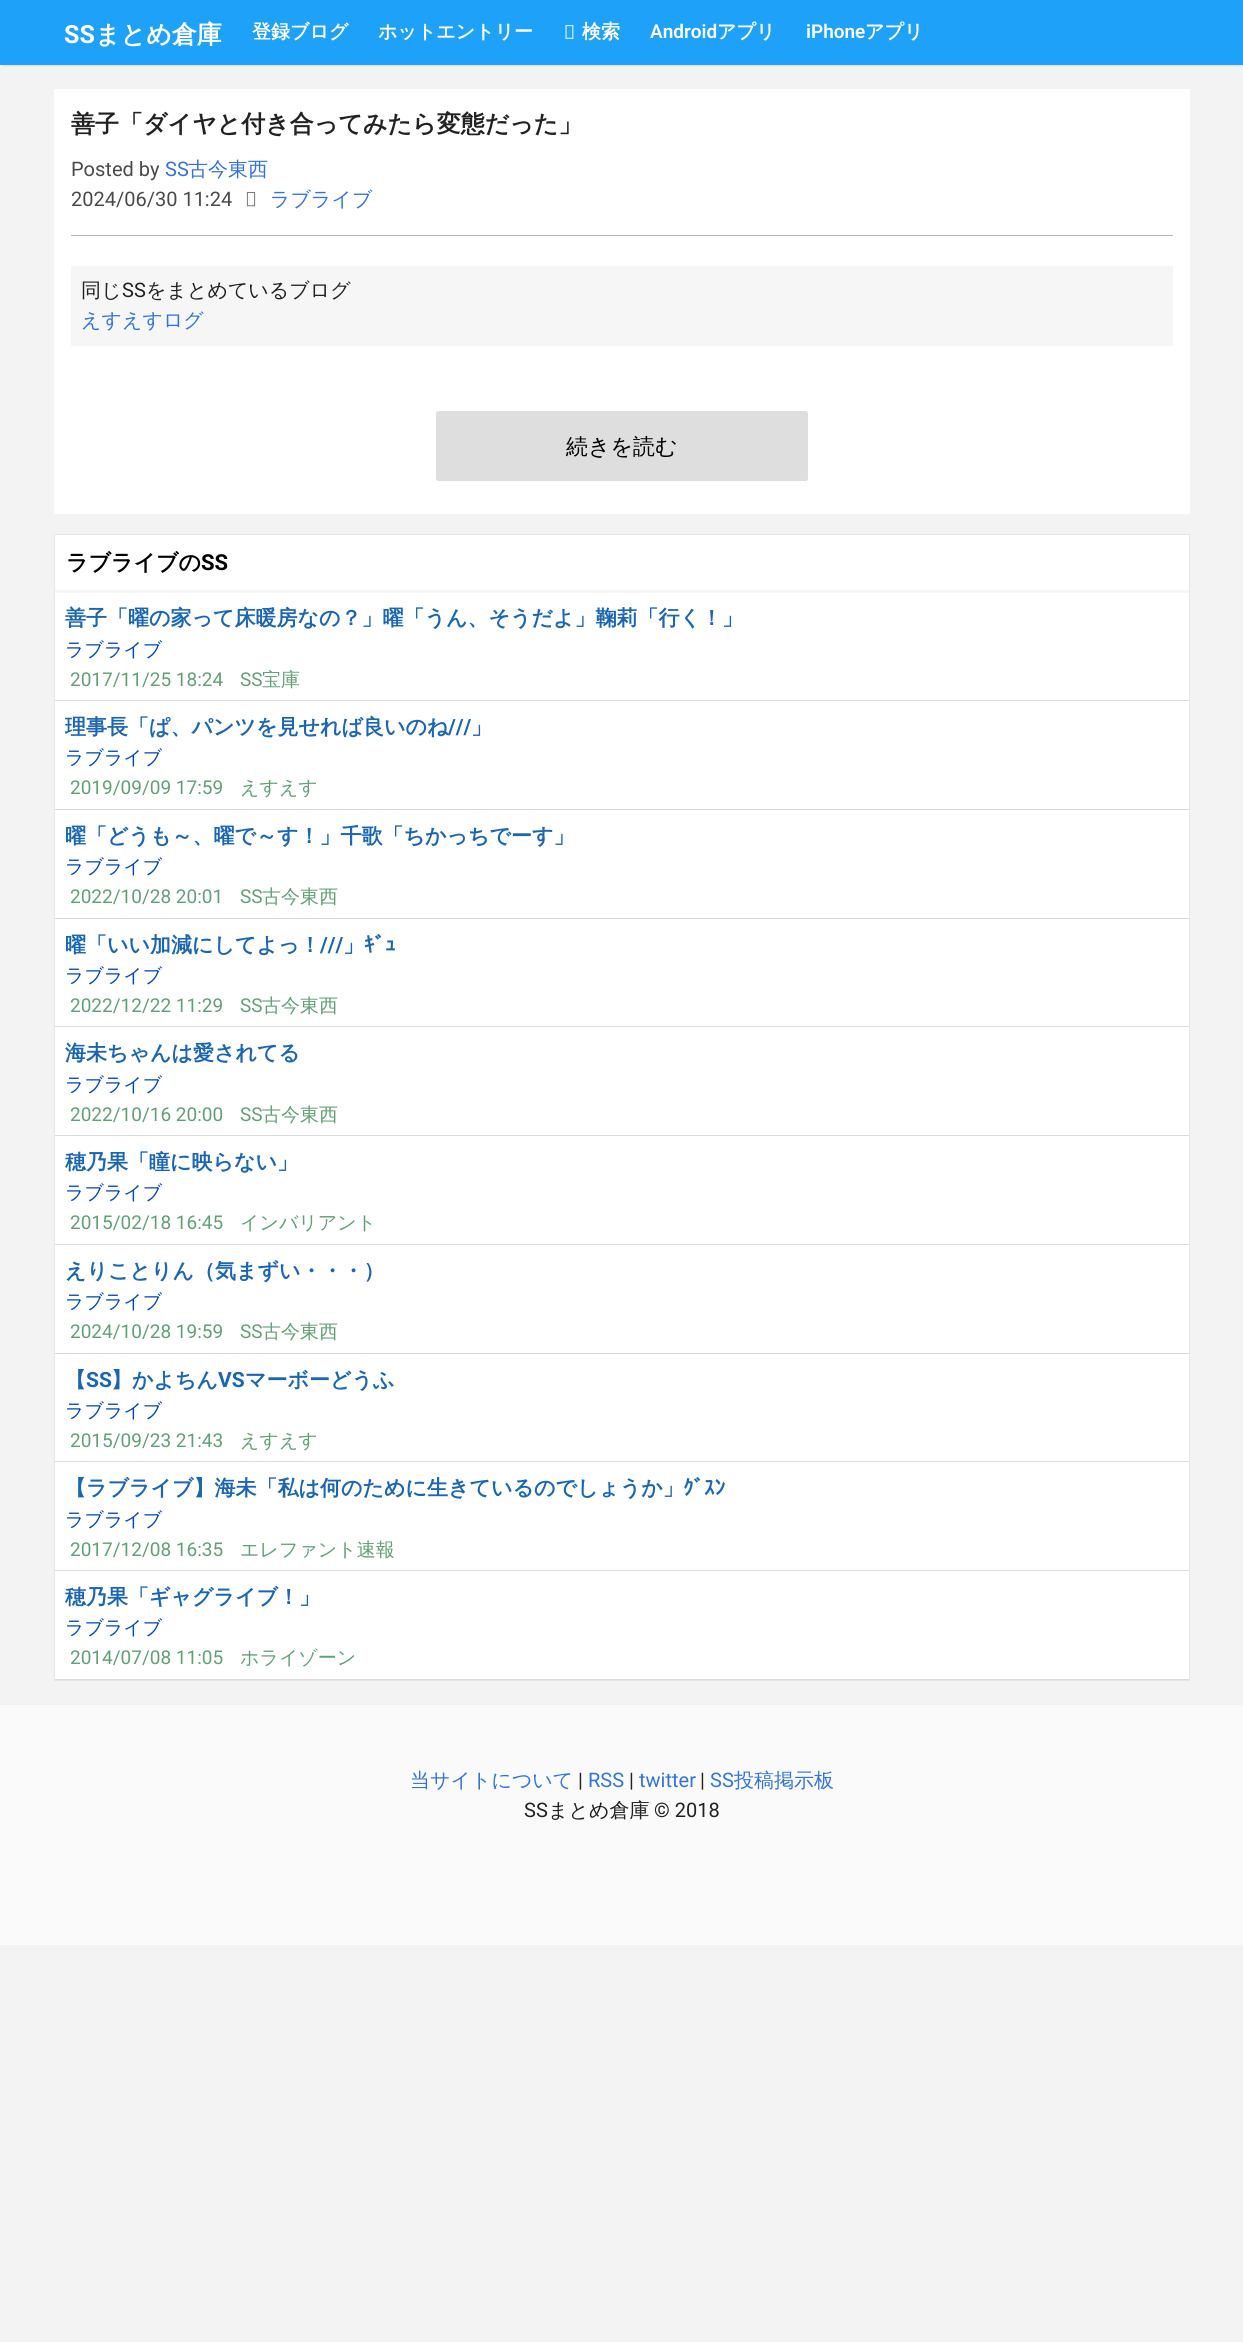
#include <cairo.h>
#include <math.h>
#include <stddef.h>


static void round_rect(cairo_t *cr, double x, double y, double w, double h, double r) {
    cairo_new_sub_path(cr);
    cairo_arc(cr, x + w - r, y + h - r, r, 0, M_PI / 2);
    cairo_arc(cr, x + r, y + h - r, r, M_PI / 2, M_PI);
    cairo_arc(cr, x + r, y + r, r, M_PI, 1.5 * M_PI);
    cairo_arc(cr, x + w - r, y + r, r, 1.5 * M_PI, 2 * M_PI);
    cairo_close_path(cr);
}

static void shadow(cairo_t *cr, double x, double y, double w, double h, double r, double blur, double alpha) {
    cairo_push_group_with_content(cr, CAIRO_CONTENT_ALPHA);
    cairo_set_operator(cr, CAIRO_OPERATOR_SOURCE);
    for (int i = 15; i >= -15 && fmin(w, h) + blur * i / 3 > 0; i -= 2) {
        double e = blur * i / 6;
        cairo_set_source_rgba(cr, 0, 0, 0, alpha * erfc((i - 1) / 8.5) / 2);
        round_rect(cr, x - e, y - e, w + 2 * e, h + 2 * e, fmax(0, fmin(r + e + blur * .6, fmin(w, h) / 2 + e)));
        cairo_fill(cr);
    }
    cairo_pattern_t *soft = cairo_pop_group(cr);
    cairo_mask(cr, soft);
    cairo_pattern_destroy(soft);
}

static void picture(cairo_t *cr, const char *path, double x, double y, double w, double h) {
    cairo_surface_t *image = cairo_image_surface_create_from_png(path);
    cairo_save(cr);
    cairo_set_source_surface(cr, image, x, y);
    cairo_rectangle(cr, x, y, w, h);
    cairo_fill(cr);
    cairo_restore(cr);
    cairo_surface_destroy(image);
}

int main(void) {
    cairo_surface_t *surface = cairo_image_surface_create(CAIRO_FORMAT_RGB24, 1243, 2342);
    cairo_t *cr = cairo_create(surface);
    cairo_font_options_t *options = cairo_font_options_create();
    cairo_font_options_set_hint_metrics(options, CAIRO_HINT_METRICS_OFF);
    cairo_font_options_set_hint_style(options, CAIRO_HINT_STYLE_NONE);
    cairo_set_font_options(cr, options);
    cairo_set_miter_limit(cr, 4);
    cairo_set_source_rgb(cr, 0.953, 0.953, 0.953);
    cairo_paint(cr);
    cairo_set_source_rgb(cr, 0, 0, 0);
    shadow(cr, 3, 6, 1238, 60, 0, 1, 0.1);
    cairo_set_source_rgb(cr, 0.118, 0.631, 0.969);
    cairo_rectangle(cr, 0, 0, 1243, 65);
    cairo_fill(cr);
    cairo_select_font_face(cr, "Roboto", CAIRO_FONT_SLANT_NORMAL, CAIRO_FONT_WEIGHT_BOLD);
    cairo_set_font_size(cr, 25);
    cairo_set_source_rgb(cr, 1, 1, 1);
    cairo_move_to(cr, 64, 43);
    cairo_show_text(cr, "SS");
    cairo_select_font_face(cr, "WenQuanYi Zen Hei", CAIRO_FONT_SLANT_NORMAL, CAIRO_FONT_WEIGHT_BOLD);
    cairo_move_to(cr, 95, 43);
    cairo_show_text(cr, "まとめ倉庫");
    cairo_set_font_size(cr, 19);
    cairo_move_to(cr, 252, 38);
    cairo_show_text(cr, "登録ブログ");
    cairo_move_to(cr, 378, 38);
    cairo_show_text(cr, "ホットエントリー");
    picture(cr, "img1.png", 565, 25, 9, 14);
    cairo_move_to(cr, 582, 38);
    cairo_show_text(cr, "検索");
    cairo_select_font_face(cr, "Roboto SemiBold", CAIRO_FONT_SLANT_NORMAL, CAIRO_FONT_WEIGHT_NORMAL);
    cairo_move_to(cr, 650, 38);
    cairo_show_text(cr, "Android");
    cairo_select_font_face(cr, "WenQuanYi Zen Hei", CAIRO_FONT_SLANT_NORMAL, CAIRO_FONT_WEIGHT_BOLD);
    cairo_move_to(cr, 717, 38);
    cairo_show_text(cr, "アプリ");
    cairo_select_font_face(cr, "Roboto SemiBold", CAIRO_FONT_SLANT_NORMAL, CAIRO_FONT_WEIGHT_NORMAL);
    cairo_move_to(cr, 806, 38);
    cairo_show_text(cr, "iPhone");
    cairo_select_font_face(cr, "WenQuanYi Zen Hei", CAIRO_FONT_SLANT_NORMAL, CAIRO_FONT_WEIGHT_BOLD);
    cairo_move_to(cr, 865, 38);
    cairo_show_text(cr, "アプリ");
    cairo_rectangle(cr, 54, 89, 1136, 425);
    cairo_fill(cr);
    cairo_set_source_rgb(cr, 0.71, 0.71, 0.71);
    cairo_rectangle(cr, 71, 235, 1102, 1);
    cairo_fill(cr);
    cairo_set_font_size(cr, 24);
    cairo_set_source_rgb(cr, 0.133, 0.133, 0.133);
    cairo_move_to(cr, 71, 132);
    cairo_show_text(cr, "善子「ダイヤと付き合ってみたら変態だった」");
    cairo_select_font_face(cr, "Roboto", CAIRO_FONT_SLANT_NORMAL, CAIRO_FONT_WEIGHT_NORMAL);
    cairo_set_font_size(cr, 20);
    cairo_set_source_rgb(cr, 0.29, 0.29, 0.29);
    cairo_move_to(cr, 71, 176);
    cairo_show_text(cr, "Posted by");
    cairo_set_source_rgb(cr, 0.196, 0.451, 0.863);
    cairo_move_to(cr, 165, 176);
    cairo_show_text(cr, "SS");
    cairo_select_font_face(cr, "WenQuanYi Zen Hei Medium", CAIRO_FONT_SLANT_NORMAL, CAIRO_FONT_WEIGHT_NORMAL);
    cairo_move_to(cr, 188, 176);
    cairo_show_text(cr, "古今東西");
    cairo_select_font_face(cr, "Roboto", CAIRO_FONT_SLANT_NORMAL, CAIRO_FONT_WEIGHT_NORMAL);
    cairo_set_source_rgb(cr, 0.29, 0.29, 0.29);
    cairo_move_to(cr, 71, 206);
    cairo_show_text(cr, "2024/06/30 11:24");
    picture(cr, "img2.png", 246, 191, 10, 16);
    cairo_select_font_face(cr, "WenQuanYi Zen Hei Medium", CAIRO_FONT_SLANT_NORMAL, CAIRO_FONT_WEIGHT_NORMAL);
    cairo_set_source_rgb(cr, 0.196, 0.451, 0.863);
    cairo_move_to(cr, 270, 206);
    cairo_show_text(cr, "ラブライブ");
    cairo_set_source_rgb(cr, 0.961, 0.961, 0.961);
    cairo_rectangle(cr, 71, 266, 1102, 80);
    cairo_fill(cr);
    cairo_set_source_rgb(cr, 0.133, 0.133, 0.133);
    cairo_move_to(cr, 81, 297);
    cairo_show_text(cr, "同じ");
    cairo_select_font_face(cr, "Roboto", CAIRO_FONT_SLANT_NORMAL, CAIRO_FONT_WEIGHT_NORMAL);
    cairo_move_to(cr, 122, 297);
    cairo_show_text(cr, "SS");
    cairo_select_font_face(cr, "WenQuanYi Zen Hei Medium", CAIRO_FONT_SLANT_NORMAL, CAIRO_FONT_WEIGHT_NORMAL);
    cairo_move_to(cr, 146, 297);
    cairo_show_text(cr, "をまとめているブログ");
    cairo_set_source_rgb(cr, 0.196, 0.451, 0.863);
    cairo_move_to(cr, 81, 327);
    cairo_show_text(cr, "えすえすログ");
    cairo_set_source_rgb(cr, 0.871, 0.871, 0.871);
    round_rect(cr, 436, 411, 372, 70, 2.5);
    cairo_fill(cr);
    cairo_set_font_size(cr, 22);
    cairo_set_source_rgb(cr, 0, 0, 0);
    cairo_move_to(cr, 566, 454);
    cairo_show_text(cr, "続きを読む");
    cairo_set_source_rgb(cr, 1, 1, 1);
    cairo_rectangle(cr, 55, 535, 1134, 1144);
    cairo_fill(cr);
    cairo_rectangle(cr, 54.5, 534.5, 1135, 1146);
    cairo_set_source_rgb(cr, 0.902, 0.902, 0.902);
    cairo_set_line_width(cr, 1);
    cairo_stroke(cr);
    cairo_select_font_face(cr, "WenQuanYi Zen Hei", CAIRO_FONT_SLANT_NORMAL, CAIRO_FONT_WEIGHT_BOLD);
    cairo_set_source_rgb(cr, 0, 0, 0);
    cairo_move_to(cr, 66, 570);
    cairo_show_text(cr, "ラブライブの");
    cairo_select_font_face(cr, "Roboto", CAIRO_FONT_SLANT_NORMAL, CAIRO_FONT_WEIGHT_BOLD);
    cairo_move_to(cr, 201, 570);
    cairo_show_text(cr, "SS");
    cairo_set_source_rgb(cr, 0.961, 0.961, 0.961);
    cairo_rectangle(cr, 55, 590, 1134, 3);
    cairo_fill(cr);
    cairo_set_source_rgb(cr, 0.859, 0.859, 0.859);
    cairo_rectangle(cr, 55, 700, 1134, 1);
    cairo_fill(cr);
    cairo_select_font_face(cr, "WenQuanYi Zen Hei", CAIRO_FONT_SLANT_NORMAL, CAIRO_FONT_WEIGHT_BOLD);
    cairo_set_font_size(cr, 21);
    cairo_set_source_rgb(cr, 0.102, 0.4, 0.702);
    cairo_move_to(cr, 65, 625);
    cairo_show_text(cr, "善子「曜の家って床暖房なの？」曜「うん、そうだよ」鞠莉「行く！」");
    cairo_select_font_face(cr, "WenQuanYi Zen Hei Medium", CAIRO_FONT_SLANT_NORMAL, CAIRO_FONT_WEIGHT_NORMAL);
    cairo_set_font_size(cr, 19);
    cairo_set_source_rgb(cr, 0.004, 0.282, 0.733);
    cairo_move_to(cr, 65, 656);
    cairo_show_text(cr, "ラブライブ");
    cairo_select_font_face(cr, "Roboto", CAIRO_FONT_SLANT_NORMAL, CAIRO_FONT_WEIGHT_NORMAL);
    cairo_set_source_rgb(cr, 0.38, 0.627, 0.459);
    cairo_move_to(cr, 70, 686);
    cairo_show_text(cr, "2017/11/25 18:24");
    cairo_move_to(cr, 240, 686);
    cairo_show_text(cr, "SS");
    cairo_select_font_face(cr, "WenQuanYi Zen Hei Medium", CAIRO_FONT_SLANT_NORMAL, CAIRO_FONT_WEIGHT_NORMAL);
    cairo_move_to(cr, 262, 686);
    cairo_show_text(cr, "宝庫");
    cairo_set_source_rgb(cr, 0.859, 0.859, 0.859);
    cairo_rectangle(cr, 55, 809, 1134, 1);
    cairo_fill(cr);
    cairo_select_font_face(cr, "WenQuanYi Zen Hei", CAIRO_FONT_SLANT_NORMAL, CAIRO_FONT_WEIGHT_BOLD);
    cairo_set_font_size(cr, 21);
    cairo_set_source_rgb(cr, 0.102, 0.4, 0.702);
    cairo_move_to(cr, 65, 734);
    cairo_show_text(cr, "理事長「ぱ、パンツを見せれば良いのね");
    cairo_select_font_face(cr, "Roboto", CAIRO_FONT_SLANT_NORMAL, CAIRO_FONT_WEIGHT_BOLD);
    cairo_move_to(cr, 448, 734);
    cairo_show_text(cr, "///");
    cairo_select_font_face(cr, "WenQuanYi Zen Hei", CAIRO_FONT_SLANT_NORMAL, CAIRO_FONT_WEIGHT_BOLD);
    cairo_move_to(cr, 471, 734);
    cairo_show_text(cr, "」");
    cairo_select_font_face(cr, "WenQuanYi Zen Hei Medium", CAIRO_FONT_SLANT_NORMAL, CAIRO_FONT_WEIGHT_NORMAL);
    cairo_set_font_size(cr, 19);
    cairo_set_source_rgb(cr, 0.004, 0.282, 0.733);
    cairo_move_to(cr, 65, 764);
    cairo_show_text(cr, "ラブライブ");
    cairo_select_font_face(cr, "Roboto", CAIRO_FONT_SLANT_NORMAL, CAIRO_FONT_WEIGHT_NORMAL);
    cairo_set_source_rgb(cr, 0.38, 0.627, 0.459);
    cairo_move_to(cr, 70, 794);
    cairo_show_text(cr, "2019/09/09 17:59");
    cairo_select_font_face(cr, "WenQuanYi Zen Hei Medium", CAIRO_FONT_SLANT_NORMAL, CAIRO_FONT_WEIGHT_NORMAL);
    cairo_move_to(cr, 240, 794);
    cairo_show_text(cr, "えすえす");
    cairo_set_source_rgb(cr, 0.859, 0.859, 0.859);
    cairo_rectangle(cr, 55, 918, 1134, 1);
    cairo_fill(cr);
    cairo_select_font_face(cr, "WenQuanYi Zen Hei", CAIRO_FONT_SLANT_NORMAL, CAIRO_FONT_WEIGHT_BOLD);
    cairo_set_font_size(cr, 21);
    cairo_set_source_rgb(cr, 0.102, 0.4, 0.702);
    cairo_move_to(cr, 65, 843);
    cairo_show_text(cr, "曜「どうも～、曜で～す！」千歌「ちかっちでーす」");
    cairo_select_font_face(cr, "WenQuanYi Zen Hei Medium", CAIRO_FONT_SLANT_NORMAL, CAIRO_FONT_WEIGHT_NORMAL);
    cairo_set_font_size(cr, 19);
    cairo_set_source_rgb(cr, 0.004, 0.282, 0.733);
    cairo_move_to(cr, 65, 873);
    cairo_show_text(cr, "ラブライブ");
    cairo_select_font_face(cr, "Roboto", CAIRO_FONT_SLANT_NORMAL, CAIRO_FONT_WEIGHT_NORMAL);
    cairo_set_source_rgb(cr, 0.38, 0.627, 0.459);
    cairo_move_to(cr, 70, 903);
    cairo_show_text(cr, "2022/10/28 20:01");
    cairo_move_to(cr, 240, 903);
    cairo_show_text(cr, "SS");
    cairo_select_font_face(cr, "WenQuanYi Zen Hei Medium", CAIRO_FONT_SLANT_NORMAL, CAIRO_FONT_WEIGHT_NORMAL);
    cairo_move_to(cr, 262, 903);
    cairo_show_text(cr, "古今東西");
    cairo_set_source_rgb(cr, 0.859, 0.859, 0.859);
    cairo_rectangle(cr, 55, 1026, 1134, 1);
    cairo_fill(cr);
    cairo_select_font_face(cr, "WenQuanYi Zen Hei", CAIRO_FONT_SLANT_NORMAL, CAIRO_FONT_WEIGHT_BOLD);
    cairo_set_font_size(cr, 21);
    cairo_set_source_rgb(cr, 0.102, 0.4, 0.702);
    cairo_move_to(cr, 65, 952);
    cairo_show_text(cr, "曜「いい加減にしてよっ！");
    cairo_select_font_face(cr, "Roboto", CAIRO_FONT_SLANT_NORMAL, CAIRO_FONT_WEIGHT_BOLD);
    cairo_move_to(cr, 320, 952);
    cairo_show_text(cr, "///");
    cairo_select_font_face(cr, "WenQuanYi Zen Hei", CAIRO_FONT_SLANT_NORMAL, CAIRO_FONT_WEIGHT_BOLD);
    cairo_move_to(cr, 343, 952);
    cairo_show_text(cr, "」");
    cairo_select_font_face(cr, "IPAPGothic", CAIRO_FONT_SLANT_NORMAL, CAIRO_FONT_WEIGHT_BOLD);
    cairo_move_to(cr, 364, 952);
    cairo_show_text(cr, "ｷﾞｭ");
    cairo_select_font_face(cr, "WenQuanYi Zen Hei Medium", CAIRO_FONT_SLANT_NORMAL, CAIRO_FONT_WEIGHT_NORMAL);
    cairo_set_font_size(cr, 19);
    cairo_set_source_rgb(cr, 0.004, 0.282, 0.733);
    cairo_move_to(cr, 65, 982);
    cairo_show_text(cr, "ラブライブ");
    cairo_select_font_face(cr, "Roboto", CAIRO_FONT_SLANT_NORMAL, CAIRO_FONT_WEIGHT_NORMAL);
    cairo_set_source_rgb(cr, 0.38, 0.627, 0.459);
    cairo_move_to(cr, 70, 1012);
    cairo_show_text(cr, "2022/12/22 11:29");
    cairo_move_to(cr, 240, 1012);
    cairo_show_text(cr, "SS");
    cairo_select_font_face(cr, "WenQuanYi Zen Hei Medium", CAIRO_FONT_SLANT_NORMAL, CAIRO_FONT_WEIGHT_NORMAL);
    cairo_move_to(cr, 262, 1012);
    cairo_show_text(cr, "古今東西");
    cairo_set_source_rgb(cr, 0.859, 0.859, 0.859);
    cairo_rectangle(cr, 55, 1135, 1134, 1);
    cairo_fill(cr);
    cairo_select_font_face(cr, "WenQuanYi Zen Hei", CAIRO_FONT_SLANT_NORMAL, CAIRO_FONT_WEIGHT_BOLD);
    cairo_set_font_size(cr, 21);
    cairo_set_source_rgb(cr, 0.102, 0.4, 0.702);
    cairo_move_to(cr, 65, 1060);
    cairo_show_text(cr, "海未ちゃんは愛されてる");
    cairo_select_font_face(cr, "WenQuanYi Zen Hei Medium", CAIRO_FONT_SLANT_NORMAL, CAIRO_FONT_WEIGHT_NORMAL);
    cairo_set_font_size(cr, 19);
    cairo_set_source_rgb(cr, 0.004, 0.282, 0.733);
    cairo_move_to(cr, 65, 1091);
    cairo_show_text(cr, "ラブライブ");
    cairo_select_font_face(cr, "Roboto", CAIRO_FONT_SLANT_NORMAL, CAIRO_FONT_WEIGHT_NORMAL);
    cairo_set_source_rgb(cr, 0.38, 0.627, 0.459);
    cairo_move_to(cr, 70, 1121);
    cairo_show_text(cr, "2022/10/16 20:00");
    cairo_move_to(cr, 240, 1121);
    cairo_show_text(cr, "SS");
    cairo_select_font_face(cr, "WenQuanYi Zen Hei Medium", CAIRO_FONT_SLANT_NORMAL, CAIRO_FONT_WEIGHT_NORMAL);
    cairo_move_to(cr, 262, 1121);
    cairo_show_text(cr, "古今東西");
    cairo_set_source_rgb(cr, 0.859, 0.859, 0.859);
    cairo_rectangle(cr, 55, 1244, 1134, 1);
    cairo_fill(cr);
    cairo_select_font_face(cr, "WenQuanYi Zen Hei", CAIRO_FONT_SLANT_NORMAL, CAIRO_FONT_WEIGHT_BOLD);
    cairo_set_font_size(cr, 21);
    cairo_set_source_rgb(cr, 0.102, 0.4, 0.702);
    cairo_move_to(cr, 65, 1169);
    cairo_show_text(cr, "穂乃果「瞳に映らない」");
    cairo_select_font_face(cr, "WenQuanYi Zen Hei Medium", CAIRO_FONT_SLANT_NORMAL, CAIRO_FONT_WEIGHT_NORMAL);
    cairo_set_font_size(cr, 19);
    cairo_set_source_rgb(cr, 0.004, 0.282, 0.733);
    cairo_move_to(cr, 65, 1199);
    cairo_show_text(cr, "ラブライブ");
    cairo_select_font_face(cr, "Roboto", CAIRO_FONT_SLANT_NORMAL, CAIRO_FONT_WEIGHT_NORMAL);
    cairo_set_source_rgb(cr, 0.38, 0.627, 0.459);
    cairo_move_to(cr, 70, 1229);
    cairo_show_text(cr, "2015/02/18 16:45");
    cairo_select_font_face(cr, "WenQuanYi Zen Hei Medium", CAIRO_FONT_SLANT_NORMAL, CAIRO_FONT_WEIGHT_NORMAL);
    cairo_move_to(cr, 240, 1229);
    cairo_show_text(cr, "インバリアント");
    cairo_set_source_rgb(cr, 0.859, 0.859, 0.859);
    cairo_rectangle(cr, 55, 1353, 1134, 1);
    cairo_fill(cr);
    cairo_select_font_face(cr, "WenQuanYi Zen Hei", CAIRO_FONT_SLANT_NORMAL, CAIRO_FONT_WEIGHT_BOLD);
    cairo_set_font_size(cr, 21);
    cairo_set_source_rgb(cr, 0.102, 0.4, 0.702);
    cairo_move_to(cr, 65, 1278);
    cairo_show_text(cr, "えりことりん（気まずい・・・）");
    cairo_select_font_face(cr, "WenQuanYi Zen Hei Medium", CAIRO_FONT_SLANT_NORMAL, CAIRO_FONT_WEIGHT_NORMAL);
    cairo_set_font_size(cr, 19);
    cairo_set_source_rgb(cr, 0.004, 0.282, 0.733);
    cairo_move_to(cr, 65, 1308);
    cairo_show_text(cr, "ラブライブ");
    cairo_select_font_face(cr, "Roboto", CAIRO_FONT_SLANT_NORMAL, CAIRO_FONT_WEIGHT_NORMAL);
    cairo_set_source_rgb(cr, 0.38, 0.627, 0.459);
    cairo_move_to(cr, 70, 1338);
    cairo_show_text(cr, "2024/10/28 19:59");
    cairo_move_to(cr, 240, 1338);
    cairo_show_text(cr, "SS");
    cairo_select_font_face(cr, "WenQuanYi Zen Hei Medium", CAIRO_FONT_SLANT_NORMAL, CAIRO_FONT_WEIGHT_NORMAL);
    cairo_move_to(cr, 262, 1338);
    cairo_show_text(cr, "古今東西");
    cairo_set_source_rgb(cr, 0.859, 0.859, 0.859);
    cairo_rectangle(cr, 55, 1461, 1134, 1);
    cairo_fill(cr);
    cairo_select_font_face(cr, "WenQuanYi Zen Hei", CAIRO_FONT_SLANT_NORMAL, CAIRO_FONT_WEIGHT_BOLD);
    cairo_set_font_size(cr, 21);
    cairo_set_source_rgb(cr, 0.102, 0.4, 0.702);
    cairo_move_to(cr, 65, 1387);
    cairo_show_text(cr, "【");
    cairo_select_font_face(cr, "Roboto", CAIRO_FONT_SLANT_NORMAL, CAIRO_FONT_WEIGHT_BOLD);
    cairo_move_to(cr, 86, 1387);
    cairo_show_text(cr, "SS");
    cairo_select_font_face(cr, "WenQuanYi Zen Hei", CAIRO_FONT_SLANT_NORMAL, CAIRO_FONT_WEIGHT_BOLD);
    cairo_move_to(cr, 111, 1387);
    cairo_show_text(cr, "】かよちん");
    cairo_select_font_face(cr, "Roboto", CAIRO_FONT_SLANT_NORMAL, CAIRO_FONT_WEIGHT_BOLD);
    cairo_move_to(cr, 218, 1387);
    cairo_show_text(cr, "VS");
    cairo_select_font_face(cr, "WenQuanYi Zen Hei", CAIRO_FONT_SLANT_NORMAL, CAIRO_FONT_WEIGHT_BOLD);
    cairo_move_to(cr, 245, 1387);
    cairo_show_text(cr, "マーボーどうふ");
    cairo_select_font_face(cr, "WenQuanYi Zen Hei Medium", CAIRO_FONT_SLANT_NORMAL, CAIRO_FONT_WEIGHT_NORMAL);
    cairo_set_font_size(cr, 19);
    cairo_set_source_rgb(cr, 0.004, 0.282, 0.733);
    cairo_move_to(cr, 65, 1417);
    cairo_show_text(cr, "ラブライブ");
    cairo_select_font_face(cr, "Roboto", CAIRO_FONT_SLANT_NORMAL, CAIRO_FONT_WEIGHT_NORMAL);
    cairo_set_source_rgb(cr, 0.38, 0.627, 0.459);
    cairo_move_to(cr, 70, 1447);
    cairo_show_text(cr, "2015/09/23 21:43");
    cairo_select_font_face(cr, "WenQuanYi Zen Hei Medium", CAIRO_FONT_SLANT_NORMAL, CAIRO_FONT_WEIGHT_NORMAL);
    cairo_move_to(cr, 240, 1447);
    cairo_show_text(cr, "えすえす");
    cairo_set_source_rgb(cr, 0.859, 0.859, 0.859);
    cairo_rectangle(cr, 55, 1570, 1134, 1);
    cairo_fill(cr);
    cairo_select_font_face(cr, "WenQuanYi Zen Hei", CAIRO_FONT_SLANT_NORMAL, CAIRO_FONT_WEIGHT_BOLD);
    cairo_set_font_size(cr, 21);
    cairo_set_source_rgb(cr, 0.102, 0.4, 0.702);
    cairo_move_to(cr, 65, 1495);
    cairo_show_text(cr, "【ラブライブ】海未「私は何のために生きているのでしょうか」");
    cairo_select_font_face(cr, "IPAPGothic", CAIRO_FONT_SLANT_NORMAL, CAIRO_FONT_WEIGHT_BOLD);
    cairo_move_to(cr, 683, 1495);
    cairo_show_text(cr, "ｸﾞｽﾝ");
    cairo_select_font_face(cr, "WenQuanYi Zen Hei Medium", CAIRO_FONT_SLANT_NORMAL, CAIRO_FONT_WEIGHT_NORMAL);
    cairo_set_font_size(cr, 19);
    cairo_set_source_rgb(cr, 0.004, 0.282, 0.733);
    cairo_move_to(cr, 65, 1526);
    cairo_show_text(cr, "ラブライブ");
    cairo_select_font_face(cr, "Roboto", CAIRO_FONT_SLANT_NORMAL, CAIRO_FONT_WEIGHT_NORMAL);
    cairo_set_source_rgb(cr, 0.38, 0.627, 0.459);
    cairo_move_to(cr, 70, 1556);
    cairo_show_text(cr, "2017/12/08 16:35");
    cairo_select_font_face(cr, "WenQuanYi Zen Hei Medium", CAIRO_FONT_SLANT_NORMAL, CAIRO_FONT_WEIGHT_NORMAL);
    cairo_move_to(cr, 240, 1556);
    cairo_show_text(cr, "エレファント速報");
    cairo_set_source_rgb(cr, 0.859, 0.859, 0.859);
    cairo_rectangle(cr, 55, 1679, 1134, 1);
    cairo_fill(cr);
    cairo_select_font_face(cr, "WenQuanYi Zen Hei", CAIRO_FONT_SLANT_NORMAL, CAIRO_FONT_WEIGHT_BOLD);
    cairo_set_font_size(cr, 21);
    cairo_set_source_rgb(cr, 0.102, 0.4, 0.702);
    cairo_move_to(cr, 65, 1604);
    cairo_show_text(cr, "穂乃果「ギャグライブ！」");
    cairo_select_font_face(cr, "WenQuanYi Zen Hei Medium", CAIRO_FONT_SLANT_NORMAL, CAIRO_FONT_WEIGHT_NORMAL);
    cairo_set_font_size(cr, 19);
    cairo_set_source_rgb(cr, 0.004, 0.282, 0.733);
    cairo_move_to(cr, 65, 1634);
    cairo_show_text(cr, "ラブライブ");
    cairo_select_font_face(cr, "Roboto", CAIRO_FONT_SLANT_NORMAL, CAIRO_FONT_WEIGHT_NORMAL);
    cairo_set_source_rgb(cr, 0.38, 0.627, 0.459);
    cairo_move_to(cr, 70, 1664);
    cairo_show_text(cr, "2014/07/08 11:05");
    cairo_select_font_face(cr, "WenQuanYi Zen Hei Medium", CAIRO_FONT_SLANT_NORMAL, CAIRO_FONT_WEIGHT_NORMAL);
    cairo_move_to(cr, 240, 1664);
    cairo_show_text(cr, "ホライゾーン");
    cairo_set_source_rgb(cr, 0.98, 0.98, 0.98);
    cairo_rectangle(cr, 0, 1705, 1243, 240);
    cairo_fill(cr);
    cairo_set_font_size(cr, 20);
    cairo_set_source_rgb(cr, 0.196, 0.451, 0.863);
    cairo_move_to(cr, 410, 1787);
    cairo_show_text(cr, "当サイトについて");
    cairo_select_font_face(cr, "Roboto", CAIRO_FONT_SLANT_NORMAL, CAIRO_FONT_WEIGHT_NORMAL);
    cairo_set_source_rgb(cr, 0.133, 0.133, 0.133);
    cairo_move_to(cr, 578, 1787);
    cairo_show_text(cr, "|");
    cairo_set_source_rgb(cr, 0.196, 0.451, 0.863);
    cairo_move_to(cr, 588, 1787);
    cairo_show_text(cr, "RSS");
    cairo_set_source_rgb(cr, 0.133, 0.133, 0.133);
    cairo_move_to(cr, 629, 1787);
    cairo_show_text(cr, "|");
    cairo_set_source_rgb(cr, 0.196, 0.451, 0.863);
    cairo_move_to(cr, 639, 1787);
    cairo_show_text(cr, "twitter");
    cairo_set_source_rgb(cr, 0.133, 0.133, 0.133);
    cairo_move_to(cr, 700, 1787);
    cairo_show_text(cr, "|");
    cairo_set_source_rgb(cr, 0.196, 0.451, 0.863);
    cairo_move_to(cr, 710, 1787);
    cairo_show_text(cr, "SS");
    cairo_select_font_face(cr, "WenQuanYi Zen Hei Medium", CAIRO_FONT_SLANT_NORMAL, CAIRO_FONT_WEIGHT_NORMAL);
    cairo_move_to(cr, 734, 1787);
    cairo_show_text(cr, "投稿掲示板");
    cairo_select_font_face(cr, "Roboto", CAIRO_FONT_SLANT_NORMAL, CAIRO_FONT_WEIGHT_NORMAL);
    cairo_set_source_rgb(cr, 0.133, 0.133, 0.133);
    cairo_move_to(cr, 524, 1817);
    cairo_show_text(cr, "SS");
    cairo_select_font_face(cr, "WenQuanYi Zen Hei Medium", CAIRO_FONT_SLANT_NORMAL, CAIRO_FONT_WEIGHT_NORMAL);
    cairo_move_to(cr, 548, 1817);
    cairo_show_text(cr, "まとめ倉庫");
    cairo_select_font_face(cr, "Roboto", CAIRO_FONT_SLANT_NORMAL, CAIRO_FONT_WEIGHT_NORMAL);
    cairo_move_to(cr, 654, 1817);
    cairo_show_text(cr, "© 2018");
    cairo_surface_write_to_png(surface, "page.png");
    cairo_font_options_destroy(options);
    cairo_destroy(cr);
    cairo_surface_destroy(surface);
    return 0;
}
